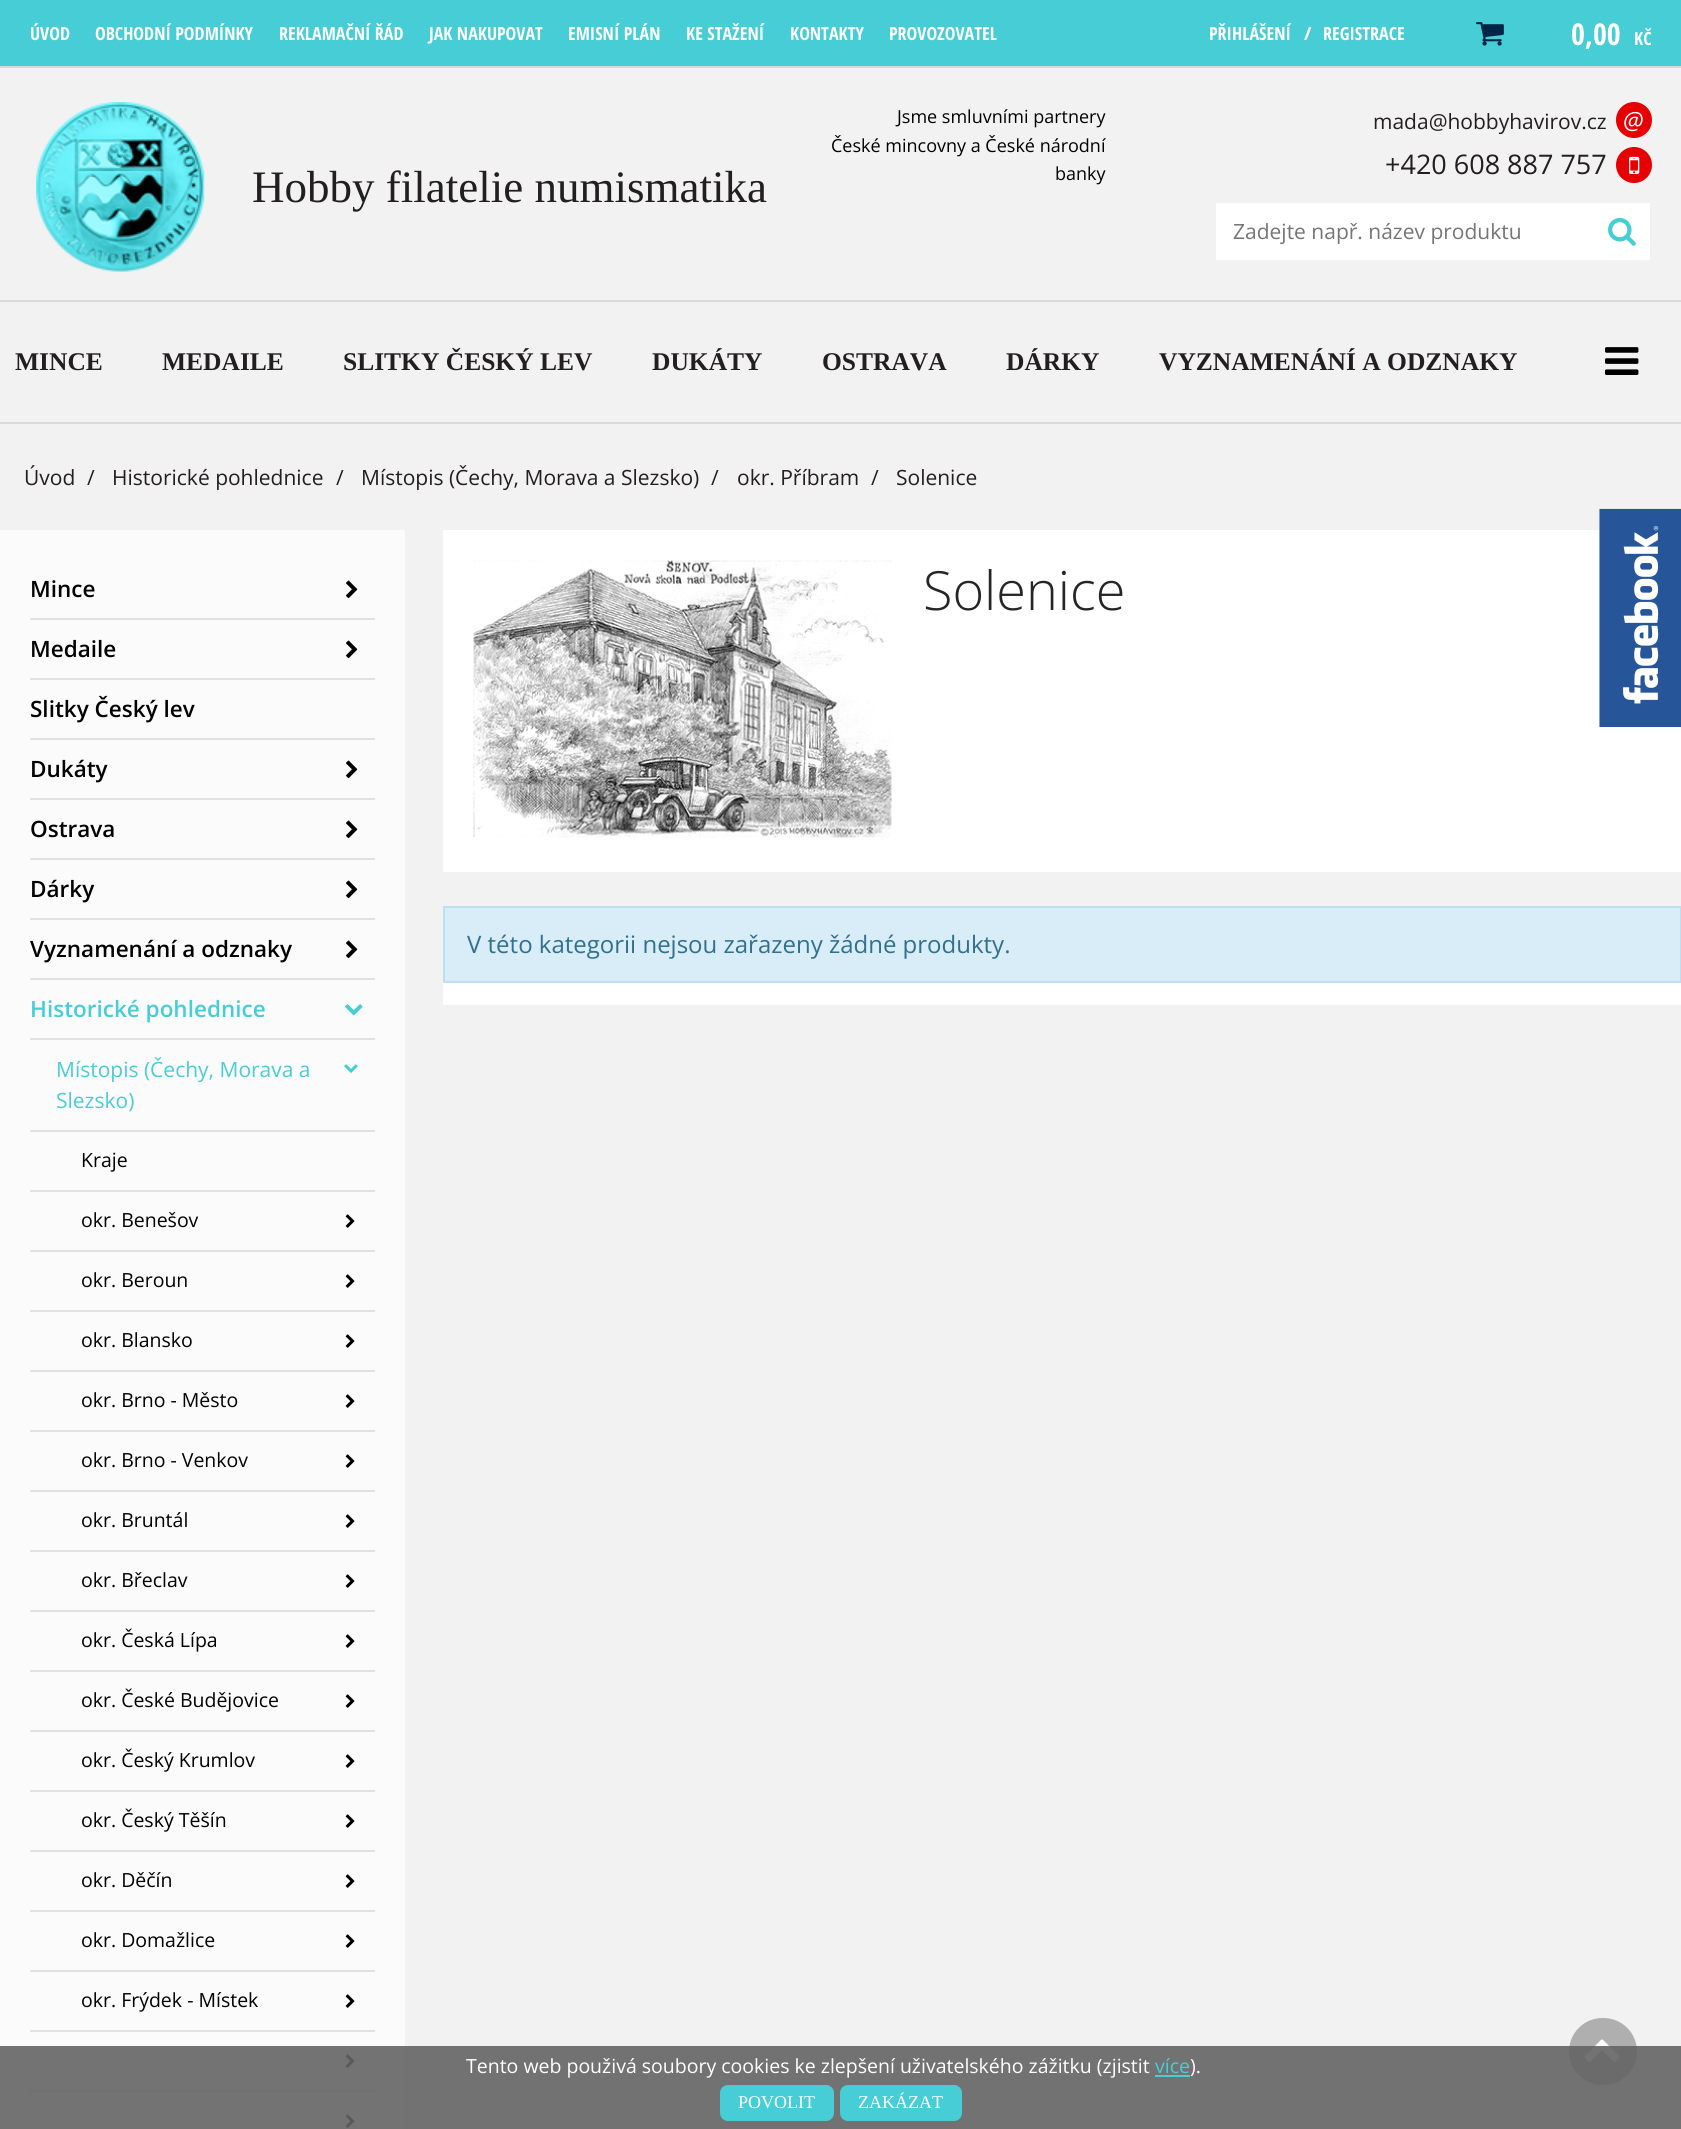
#include <cairo.h>
#include <math.h>
#include <stddef.h>


static void round_rect(cairo_t *cr, double x, double y, double w, double h, double r) {
    cairo_new_sub_path(cr);
    cairo_arc(cr, x + w - r, y + h - r, r, 0, M_PI / 2);
    cairo_arc(cr, x + r, y + h - r, r, M_PI / 2, M_PI);
    cairo_arc(cr, x + r, y + r, r, M_PI, 1.5 * M_PI);
    cairo_arc(cr, x + w - r, y + r, r, 1.5 * M_PI, 2 * M_PI);
    cairo_close_path(cr);
}

static void picture(cairo_t *cr, const char *path, double x, double y, double w, double h) {
    cairo_surface_t *image = cairo_image_surface_create_from_png(path);
    cairo_save(cr);
    cairo_set_source_surface(cr, image, x, y);
    cairo_rectangle(cr, x, y, w, h);
    cairo_fill(cr);
    cairo_restore(cr);
    cairo_surface_destroy(image);
}

int main(void) {
    cairo_surface_t *surface = cairo_image_surface_create(CAIRO_FORMAT_RGB24, 1681, 2129);
    cairo_t *cr = cairo_create(surface);
    cairo_font_options_t *options = cairo_font_options_create();
    cairo_font_options_set_hint_metrics(options, CAIRO_HINT_METRICS_OFF);
    cairo_font_options_set_hint_style(options, CAIRO_HINT_STYLE_NONE);
    cairo_set_font_options(cr, options);
    cairo_set_miter_limit(cr, 4);
    cairo_set_source_rgb(cr, 0.949, 0.949, 0.949);
    cairo_paint(cr);
    cairo_set_source_rgb(cr, 0.278, 0.804, 0.839);
    cairo_rectangle(cr, 0, 0, 1681, 66);
    cairo_fill(cr);
    cairo_set_source_rgb(cr, 0.851, 0.851, 0.851);
    cairo_rectangle(cr, 0, 66, 1681, 2);
    cairo_fill(cr);
    cairo_select_font_face(cr, "Open Sans Condensed", CAIRO_FONT_SLANT_NORMAL, CAIRO_FONT_WEIGHT_BOLD);
    cairo_set_font_size(cr, 18);
    cairo_set_source_rgb(cr, 1, 1, 1);
    cairo_move_to(cr, 30, 40);
    cairo_show_text(cr, "ÚVOD");
    cairo_move_to(cr, 95, 40);
    cairo_show_text(cr, "OBCHODNÍ PODMÍNKY");
    cairo_move_to(cr, 279, 40);
    cairo_show_text(cr, "REKLAMAČNÍ ŘÁD");
    cairo_move_to(cr, 429, 40);
    cairo_show_text(cr, "JAK NAKUPOVAT");
    cairo_move_to(cr, 568, 40);
    cairo_show_text(cr, "EMISNÍ PLÁN");
    cairo_move_to(cr, 686, 40);
    cairo_show_text(cr, "KE STAŽENÍ");
    cairo_move_to(cr, 790, 40);
    cairo_show_text(cr, "KONTAKTY");
    cairo_move_to(cr, 889, 40);
    cairo_show_text(cr, "PROVOZOVATEL");
    cairo_move_to(cr, 1209, 40);
    cairo_show_text(cr, "PŘIHLÁŠENÍ");
    cairo_select_font_face(cr, "Open Sans", CAIRO_FONT_SLANT_NORMAL, CAIRO_FONT_WEIGHT_BOLD);
    cairo_move_to(cr, 1304, 40);
    cairo_show_text(cr, "/");
    cairo_select_font_face(cr, "Open Sans Condensed", CAIRO_FONT_SLANT_NORMAL, CAIRO_FONT_WEIGHT_BOLD);
    cairo_move_to(cr, 1323, 40);
    cairo_show_text(cr, "REGISTRACE");
    picture(cr, "img1.png", 1476, 22, 28, 24);
    cairo_set_font_size(cr, 30);
    cairo_move_to(cr, 1571, 45);
    cairo_show_text(cr, "0,00");
    cairo_set_font_size(cr, 18);
    cairo_move_to(cr, 1634, 45);
    cairo_show_text(cr, "KČ");
    cairo_set_source_rgb(cr, 0.851, 0.851, 0.851);
    cairo_rectangle(cr, 0, 300, 1681, 2);
    cairo_fill(cr);
    picture(cr, "img2.png", 36, 102, 169, 170);
    cairo_select_font_face(cr, "Liberation Serif", CAIRO_FONT_SLANT_NORMAL, CAIRO_FONT_WEIGHT_NORMAL);
    cairo_set_font_size(cr, 45);
    cairo_set_source_rgb(cr, 0.137, 0.122, 0.125);
    cairo_move_to(cr, 252, 202);
    cairo_show_text(cr, "Hobby filatelie numismatika");
    cairo_select_font_face(cr, "Open Sans", CAIRO_FONT_SLANT_NORMAL, CAIRO_FONT_WEIGHT_NORMAL);
    cairo_set_font_size(cr, 18);
    cairo_set_source_rgb(cr, 0, 0, 0);
    cairo_move_to(cr, 897, 123);
    cairo_show_text(cr, "Jsme smluvními partnery");
    cairo_move_to(cr, 831, 152);
    cairo_show_text(cr, "České mincovny a České národní");
    cairo_move_to(cr, 1055, 180);
    cairo_show_text(cr, "banky");
    cairo_set_font_size(cr, 21);
    cairo_set_source_rgb(cr, 0.137, 0.122, 0.125);
    cairo_move_to(cr, 1373, 129);
    cairo_show_text(cr, "mada@hobbyhavirov.cz");
    cairo_set_source_rgb(cr, 0.902, 0, 0.008);
    cairo_new_path(cr);
    cairo_arc(cr, 1634, 120, 18, 0, 2 * M_PI);
    cairo_fill(cr);
    cairo_select_font_face(cr, "Open Sans", CAIRO_FONT_SLANT_ITALIC, CAIRO_FONT_WEIGHT_NORMAL);
    cairo_set_font_size(cr, 24);
    cairo_set_source_rgb(cr, 1, 1, 1);
    cairo_move_to(cr, 1623, 129);
    cairo_show_text(cr, "@");
    cairo_select_font_face(cr, "Open Sans", CAIRO_FONT_SLANT_NORMAL, CAIRO_FONT_WEIGHT_NORMAL);
    cairo_set_font_size(cr, 27);
    cairo_set_source_rgb(cr, 0.137, 0.122, 0.125);
    cairo_move_to(cr, 1385, 174);
    cairo_show_text(cr, "+420 608 887 757");
    cairo_set_source_rgb(cr, 0.902, 0, 0.008);
    cairo_new_path(cr);
    cairo_arc(cr, 1634, 165, 18, 0, 2 * M_PI);
    cairo_fill(cr);
    picture(cr, "img3.png", 1629, 156, 11, 18);
    cairo_set_source_rgb(cr, 1, 1, 1);
    cairo_rectangle(cr, 1216, 203, 434, 57);
    cairo_fill(cr);
    cairo_set_font_size(cr, 21);
    cairo_set_source_rgb(cr, 0.459, 0.459, 0.459);
    cairo_move_to(cr, 1233, 239);
    cairo_show_text(cr, "Zadejte např. název produktu");
    picture(cr, "img4.png", 1608, 217, 28, 29);
    cairo_select_font_face(cr, "Liberation Serif", CAIRO_FONT_SLANT_NORMAL, CAIRO_FONT_WEIGHT_BOLD);
    cairo_set_font_size(cr, 25.5);
    cairo_set_source_rgb(cr, 0.137, 0.122, 0.125);
    cairo_move_to(cr, 15, 370);
    cairo_show_text(cr, "MINCE");
    cairo_move_to(cr, 162, 370);
    cairo_show_text(cr, "MEDAILE");
    cairo_move_to(cr, 343, 370);
    cairo_show_text(cr, "SLITKY ČESKÝ LEV");
    cairo_move_to(cr, 652, 370);
    cairo_show_text(cr, "DUKÁTY");
    cairo_move_to(cr, 822, 370);
    cairo_show_text(cr, "OSTRAVA");
    cairo_move_to(cr, 1006, 370);
    cairo_show_text(cr, "DÁRKY");
    cairo_move_to(cr, 1159, 370);
    cairo_show_text(cr, "VYZNAMENÁNÍ A ODZNAKY");
    picture(cr, "img5.png", 1605, 347, 34, 28);
    cairo_set_source_rgb(cr, 0.851, 0.851, 0.851);
    cairo_rectangle(cr, 0, 422, 1681, 2);
    cairo_fill(cr);
    cairo_select_font_face(cr, "Open Sans", CAIRO_FONT_SLANT_NORMAL, CAIRO_FONT_WEIGHT_NORMAL);
    cairo_set_font_size(cr, 21);
    cairo_set_source_rgb(cr, 0.137, 0.122, 0.125);
    cairo_move_to(cr, 24, 485);
    cairo_show_text(cr, "Úvod");
    cairo_move_to(cr, 87, 485);
    cairo_show_text(cr, "/");
    cairo_move_to(cr, 112, 485);
    cairo_show_text(cr, "Historické pohlednice");
    cairo_move_to(cr, 336, 485);
    cairo_show_text(cr, "/");
    cairo_move_to(cr, 361, 485);
    cairo_show_text(cr, "Místopis (Čechy, Morava a Slezsko)");
    cairo_move_to(cr, 711, 485);
    cairo_show_text(cr, "/");
    cairo_move_to(cr, 737, 485);
    cairo_show_text(cr, "okr. Příbram");
    cairo_move_to(cr, 871, 485);
    cairo_show_text(cr, "/");
    cairo_move_to(cr, 896, 485);
    cairo_show_text(cr, "Solenice");
    cairo_set_source_rgb(cr, 0.984, 0.984, 0.984);
    cairo_rectangle(cr, 0, 530, 405, 1599);
    cairo_fill(cr);
    cairo_set_source_rgb(cr, 0.882, 0.882, 0.882);
    cairo_rectangle(cr, 30, 618, 345, 2);
    cairo_fill(cr);
    cairo_select_font_face(cr, "Open Sans SemiBold", CAIRO_FONT_SLANT_NORMAL, CAIRO_FONT_WEIGHT_NORMAL);
    cairo_set_font_size(cr, 22.5);
    cairo_set_source_rgb(cr, 0, 0, 0);
    cairo_move_to(cr, 30, 597);
    cairo_show_text(cr, "Mince");
    picture(cr, "img6.png", 346, 580, 12, 19);
    cairo_set_source_rgb(cr, 0.882, 0.882, 0.882);
    cairo_rectangle(cr, 30, 678, 345, 2);
    cairo_fill(cr);
    cairo_set_source_rgb(cr, 0, 0, 0);
    cairo_move_to(cr, 30, 657);
    cairo_show_text(cr, "Medaile");
    picture(cr, "img6.png", 346, 640, 12, 19);
    cairo_set_source_rgb(cr, 0.882, 0.882, 0.882);
    cairo_rectangle(cr, 30, 738, 345, 2);
    cairo_fill(cr);
    cairo_set_source_rgb(cr, 0, 0, 0);
    cairo_move_to(cr, 30, 717);
    cairo_show_text(cr, "Slitky Český lev");
    cairo_set_source_rgb(cr, 0.882, 0.882, 0.882);
    cairo_rectangle(cr, 30, 798, 345, 2);
    cairo_fill(cr);
    cairo_set_source_rgb(cr, 0, 0, 0);
    cairo_move_to(cr, 30, 777);
    cairo_show_text(cr, "Dukáty");
    picture(cr, "img6.png", 346, 760, 12, 19);
    cairo_set_source_rgb(cr, 0.882, 0.882, 0.882);
    cairo_rectangle(cr, 30, 858, 345, 2);
    cairo_fill(cr);
    cairo_set_source_rgb(cr, 0, 0, 0);
    cairo_move_to(cr, 30, 837);
    cairo_show_text(cr, "Ostrava");
    picture(cr, "img6.png", 346, 820, 12, 19);
    cairo_set_source_rgb(cr, 0.882, 0.882, 0.882);
    cairo_rectangle(cr, 30, 918, 345, 2);
    cairo_fill(cr);
    cairo_set_source_rgb(cr, 0, 0, 0);
    cairo_move_to(cr, 30, 897);
    cairo_show_text(cr, "Dárky");
    picture(cr, "img6.png", 346, 880, 12, 19);
    cairo_set_source_rgb(cr, 0.882, 0.882, 0.882);
    cairo_rectangle(cr, 30, 978, 345, 2);
    cairo_fill(cr);
    cairo_set_source_rgb(cr, 0, 0, 0);
    cairo_move_to(cr, 30, 957);
    cairo_show_text(cr, "Vyznamenání a odznaky");
    picture(cr, "img6.png", 346, 940, 12, 19);
    cairo_set_source_rgb(cr, 0.882, 0.882, 0.882);
    cairo_rectangle(cr, 30, 1038, 345, 2);
    cairo_fill(cr);
    cairo_set_source_rgb(cr, 0.278, 0.804, 0.839);
    cairo_move_to(cr, 30, 1017);
    cairo_show_text(cr, "Historické pohlednice");
    picture(cr, "img7.png", 345, 1004, 18, 12);
    cairo_set_source_rgb(cr, 0.882, 0.882, 0.882);
    cairo_rectangle(cr, 30, 1130, 345, 2);
    cairo_fill(cr);
    cairo_select_font_face(cr, "Open Sans", CAIRO_FONT_SLANT_NORMAL, CAIRO_FONT_WEIGHT_NORMAL);
    cairo_set_font_size(cr, 21);
    cairo_set_source_rgb(cr, 0.278, 0.804, 0.839);
    cairo_move_to(cr, 56, 1077);
    cairo_show_text(cr, "Místopis (Čechy, Morava a");
    cairo_move_to(cr, 56, 1108);
    cairo_show_text(cr, "Slezsko)");
    picture(cr, "img8.png", 344, 1064, 14, 9);
    cairo_set_source_rgb(cr, 0.882, 0.882, 0.882);
    cairo_rectangle(cr, 30, 1190, 345, 2);
    cairo_fill(cr);
    cairo_set_font_size(cr, 19.5);
    cairo_set_source_rgb(cr, 0, 0, 0);
    cairo_move_to(cr, 81, 1167);
    cairo_show_text(cr, "Kraje");
    cairo_set_source_rgb(cr, 0.882, 0.882, 0.882);
    cairo_rectangle(cr, 30, 1250, 345, 2);
    cairo_fill(cr);
    cairo_set_source_rgb(cr, 0, 0, 0);
    cairo_move_to(cr, 81, 1227);
    cairo_show_text(cr, "okr. Benešov");
    picture(cr, "img9.png", 345, 1214, 10, 14);
    cairo_set_source_rgb(cr, 0.882, 0.882, 0.882);
    cairo_rectangle(cr, 30, 1310, 345, 2);
    cairo_fill(cr);
    cairo_set_source_rgb(cr, 0, 0, 0);
    cairo_move_to(cr, 81, 1287);
    cairo_show_text(cr, "okr. Beroun");
    picture(cr, "img9.png", 345, 1274, 10, 14);
    cairo_set_source_rgb(cr, 0.882, 0.882, 0.882);
    cairo_rectangle(cr, 30, 1370, 345, 2);
    cairo_fill(cr);
    cairo_set_source_rgb(cr, 0, 0, 0);
    cairo_move_to(cr, 81, 1347);
    cairo_show_text(cr, "okr. Blansko");
    picture(cr, "img9.png", 345, 1334, 10, 14);
    cairo_set_source_rgb(cr, 0.882, 0.882, 0.882);
    cairo_rectangle(cr, 30, 1430, 345, 2);
    cairo_fill(cr);
    cairo_set_source_rgb(cr, 0, 0, 0);
    cairo_move_to(cr, 81, 1407);
    cairo_show_text(cr, "okr. Brno - Město");
    picture(cr, "img9.png", 345, 1394, 10, 14);
    cairo_set_source_rgb(cr, 0.882, 0.882, 0.882);
    cairo_rectangle(cr, 30, 1490, 345, 2);
    cairo_fill(cr);
    cairo_set_source_rgb(cr, 0, 0, 0);
    cairo_move_to(cr, 81, 1467);
    cairo_show_text(cr, "okr. Brno - Venkov");
    picture(cr, "img9.png", 345, 1454, 10, 14);
    cairo_set_source_rgb(cr, 0.882, 0.882, 0.882);
    cairo_rectangle(cr, 30, 1550, 345, 2);
    cairo_fill(cr);
    cairo_set_source_rgb(cr, 0, 0, 0);
    cairo_move_to(cr, 81, 1527);
    cairo_show_text(cr, "okr. Bruntál");
    picture(cr, "img9.png", 345, 1514, 10, 14);
    cairo_set_source_rgb(cr, 0.882, 0.882, 0.882);
    cairo_rectangle(cr, 30, 1610, 345, 2);
    cairo_fill(cr);
    cairo_set_source_rgb(cr, 0, 0, 0);
    cairo_move_to(cr, 81, 1587);
    cairo_show_text(cr, "okr. Břeclav");
    picture(cr, "img9.png", 345, 1574, 10, 14);
    cairo_set_source_rgb(cr, 0.882, 0.882, 0.882);
    cairo_rectangle(cr, 30, 1670, 345, 2);
    cairo_fill(cr);
    cairo_set_source_rgb(cr, 0, 0, 0);
    cairo_move_to(cr, 81, 1647);
    cairo_show_text(cr, "okr. Česká Lípa");
    picture(cr, "img9.png", 345, 1634, 10, 14);
    cairo_set_source_rgb(cr, 0.882, 0.882, 0.882);
    cairo_rectangle(cr, 30, 1730, 345, 2);
    cairo_fill(cr);
    cairo_set_source_rgb(cr, 0, 0, 0);
    cairo_move_to(cr, 81, 1707);
    cairo_show_text(cr, "okr. České Budějovice");
    picture(cr, "img9.png", 345, 1694, 10, 14);
    cairo_set_source_rgb(cr, 0.882, 0.882, 0.882);
    cairo_rectangle(cr, 30, 1790, 345, 2);
    cairo_fill(cr);
    cairo_set_source_rgb(cr, 0, 0, 0);
    cairo_move_to(cr, 81, 1767);
    cairo_show_text(cr, "okr. Český Krumlov");
    picture(cr, "img9.png", 345, 1754, 10, 14);
    cairo_set_source_rgb(cr, 0.882, 0.882, 0.882);
    cairo_rectangle(cr, 30, 1850, 345, 2);
    cairo_fill(cr);
    cairo_set_source_rgb(cr, 0, 0, 0);
    cairo_move_to(cr, 81, 1827);
    cairo_show_text(cr, "okr. Český Těšín");
    picture(cr, "img9.png", 345, 1814, 10, 14);
    cairo_set_source_rgb(cr, 0.882, 0.882, 0.882);
    cairo_rectangle(cr, 30, 1910, 345, 2);
    cairo_fill(cr);
    cairo_set_source_rgb(cr, 0, 0, 0);
    cairo_move_to(cr, 81, 1887);
    cairo_show_text(cr, "okr. Děčín");
    picture(cr, "img9.png", 345, 1874, 10, 14);
    cairo_set_source_rgb(cr, 0.882, 0.882, 0.882);
    cairo_rectangle(cr, 30, 1970, 345, 2);
    cairo_fill(cr);
    cairo_set_source_rgb(cr, 0, 0, 0);
    cairo_move_to(cr, 81, 1947);
    cairo_show_text(cr, "okr. Domažlice");
    picture(cr, "img9.png", 345, 1934, 10, 14);
    cairo_set_source_rgb(cr, 0.882, 0.882, 0.882);
    cairo_rectangle(cr, 30, 2030, 345, 2);
    cairo_fill(cr);
    cairo_set_source_rgb(cr, 0, 0, 0);
    cairo_move_to(cr, 81, 2007);
    cairo_show_text(cr, "okr. Frýdek - Místek");
    picture(cr, "img9.png", 345, 1994, 10, 14);
    picture(cr, "img9.png", 345, 2054, 10, 14);
    cairo_set_source_rgb(cr, 0.882, 0.882, 0.882);
    cairo_rectangle(cr, 30, 2090, 345, 2);
    cairo_fill(cr);
    picture(cr, "img9.png", 345, 2114, 10, 14);
    cairo_set_source_rgb(cr, 1, 1, 1);
    cairo_rectangle(cr, 443, 530, 1238, 342);
    cairo_fill(cr);
    picture(cr, "img10.png", 473, 560, 419, 278);
    cairo_select_font_face(cr, "Open Sans Light", CAIRO_FONT_SLANT_NORMAL, CAIRO_FONT_WEIGHT_NORMAL);
    cairo_set_font_size(cr, 54);
    cairo_set_source_rgb(cr, 0.145, 0.145, 0.145);
    cairo_move_to(cr, 923, 610);
    cairo_show_text(cr, "Solenice");
    cairo_set_source_rgb(cr, 1, 1, 1);
    cairo_rectangle(cr, 443, 983, 1238, 22);
    cairo_fill(cr);
    cairo_set_source_rgb(cr, 0.851, 0.929, 0.969);
    cairo_rectangle(cr, 444, 907, 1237, 75);
    cairo_fill_preserve(cr);
    cairo_set_source_rgb(cr, 0.737, 0.875, 0.945);
    cairo_stroke(cr);
    cairo_select_font_face(cr, "Open Sans", CAIRO_FONT_SLANT_NORMAL, CAIRO_FONT_WEIGHT_NORMAL);
    cairo_set_font_size(cr, 24);
    cairo_set_source_rgb(cr, 0.192, 0.439, 0.561);
    cairo_move_to(cr, 467, 953);
    cairo_show_text(cr, "V této kategorii nejsou zařazeny žádné produkty.");
    cairo_set_source_rgb(cr, 0.686, 0.686, 0.686);
    round_rect(cr, 1569, 2018, 68, 67, 33.5);
    cairo_fill(cr);
    picture(cr, "img11.png", 1584, 2039, 36, 23);
    picture(cr, "img12.png", 1599, 508, 82, 220);
    cairo_set_source_rgba(cr, 0.392, 0.392, 0.392, 0.9);
    cairo_rectangle(cr, 0, 2046, 1681, 83);
    cairo_fill(cr);
    cairo_set_font_size(cr, 19.5);
    cairo_set_source_rgb(cr, 1, 1, 1);
    cairo_move_to(cr, 466, 2073);
    cairo_show_text(cr, "Tento web použivá soubory cookies ke zlepšení uživatelského zážitku (zjistit");
    cairo_set_source_rgb(cr, 0.278, 0.804, 0.839);
    cairo_move_to(cr, 1155, 2073);
    cairo_show_text(cr, "více");
    cairo_rectangle(cr, 1155, 2075, 35, 2);
    cairo_fill(cr);
    cairo_set_source_rgb(cr, 1, 1, 1);
    cairo_move_to(cr, 1190, 2073);
    cairo_show_text(cr, ").");
    cairo_set_source_rgb(cr, 0.278, 0.804, 0.839);
    round_rect(cr, 720, 2085, 114, 36, 8);
    cairo_fill(cr);
    cairo_select_font_face(cr, "Liberation Serif", CAIRO_FONT_SLANT_NORMAL, CAIRO_FONT_WEIGHT_NORMAL);
    cairo_set_font_size(cr, 18);
    cairo_set_source_rgb(cr, 1, 1, 1);
    cairo_move_to(cr, 738, 2108);
    cairo_show_text(cr, "POVOLIT");
    cairo_set_source_rgb(cr, 0.278, 0.804, 0.839);
    round_rect(cr, 840, 2085, 122, 36, 8);
    cairo_fill(cr);
    cairo_set_source_rgb(cr, 1, 1, 1);
    cairo_move_to(cr, 858, 2108);
    cairo_show_text(cr, "ZAKÁZAT");
    cairo_surface_write_to_png(surface, "page.png");
    cairo_font_options_destroy(options);
    cairo_destroy(cr);
    cairo_surface_destroy(surface);
    return 0;
}
